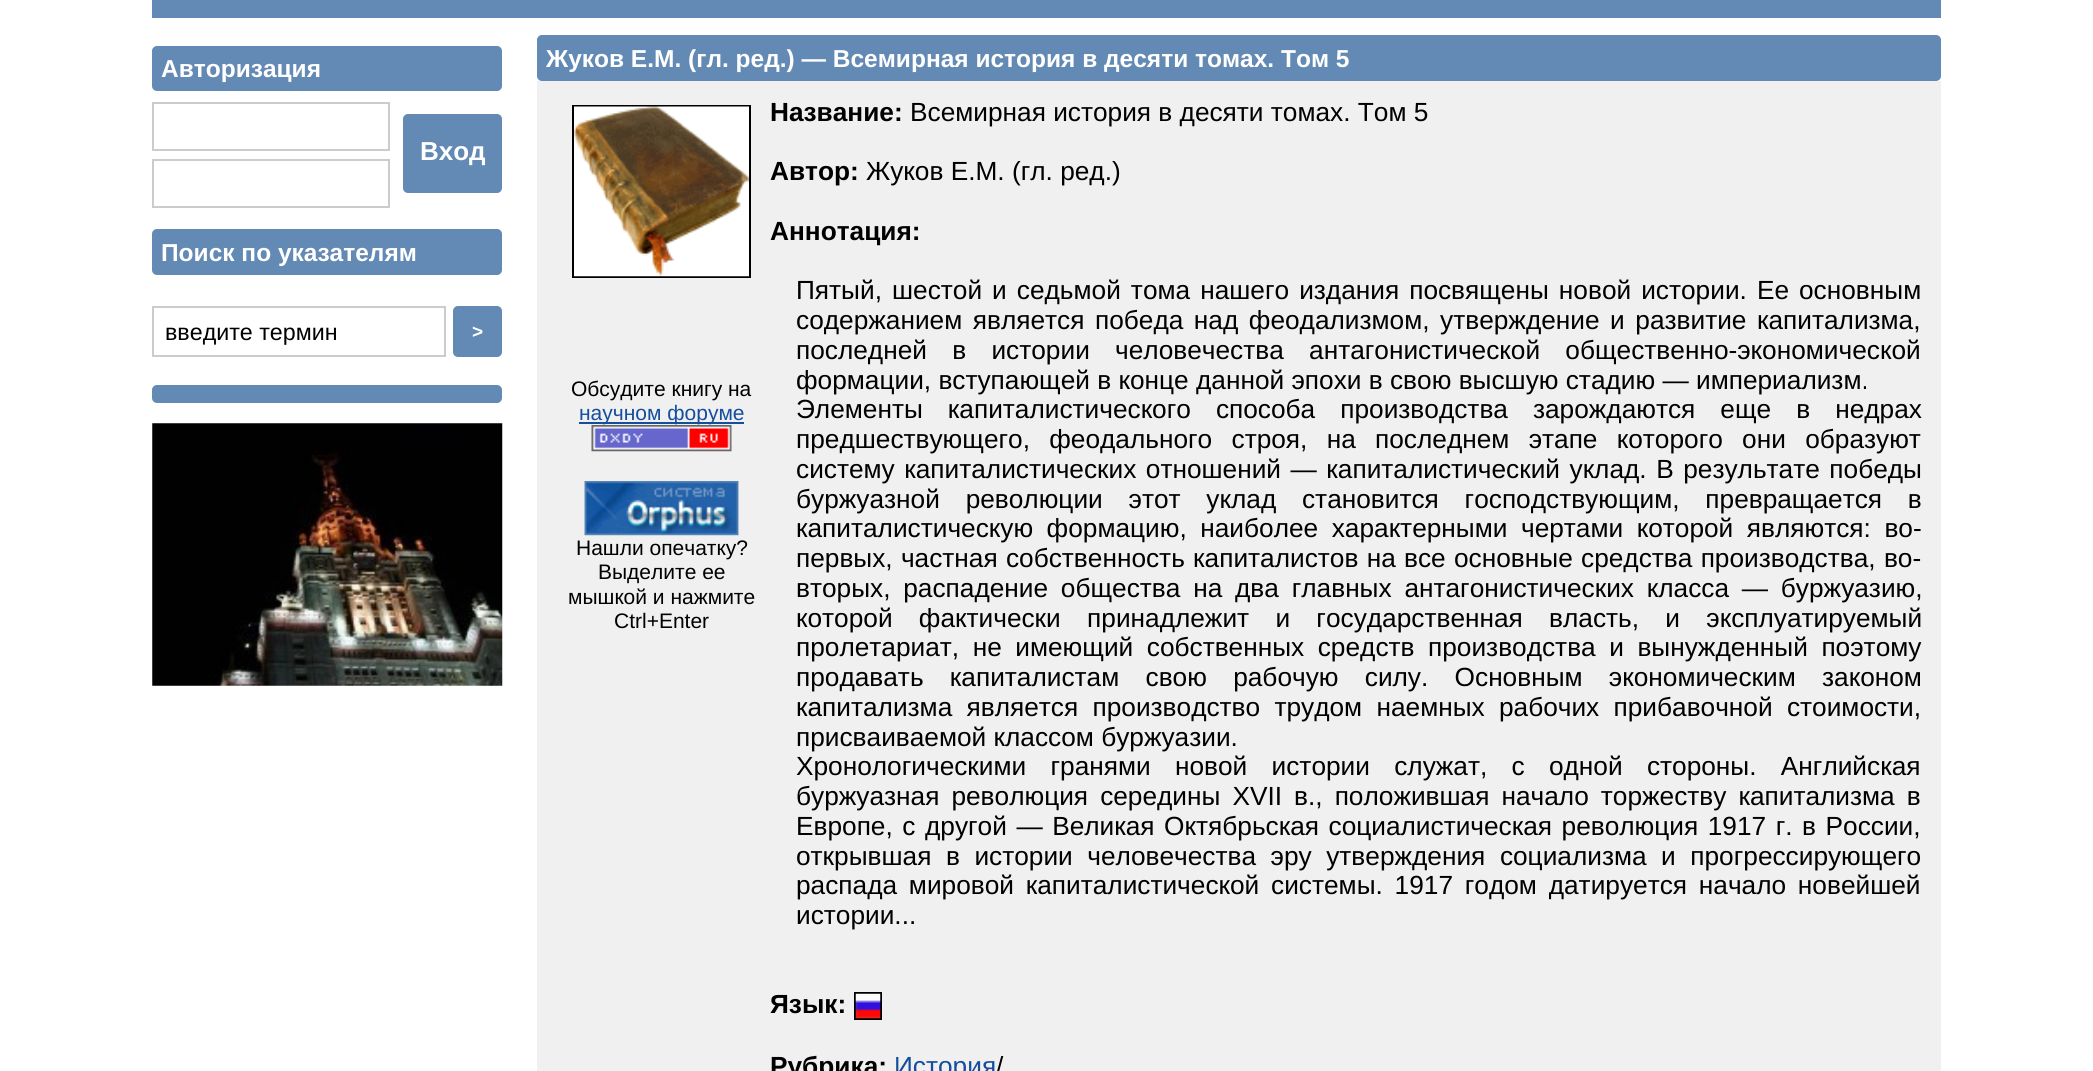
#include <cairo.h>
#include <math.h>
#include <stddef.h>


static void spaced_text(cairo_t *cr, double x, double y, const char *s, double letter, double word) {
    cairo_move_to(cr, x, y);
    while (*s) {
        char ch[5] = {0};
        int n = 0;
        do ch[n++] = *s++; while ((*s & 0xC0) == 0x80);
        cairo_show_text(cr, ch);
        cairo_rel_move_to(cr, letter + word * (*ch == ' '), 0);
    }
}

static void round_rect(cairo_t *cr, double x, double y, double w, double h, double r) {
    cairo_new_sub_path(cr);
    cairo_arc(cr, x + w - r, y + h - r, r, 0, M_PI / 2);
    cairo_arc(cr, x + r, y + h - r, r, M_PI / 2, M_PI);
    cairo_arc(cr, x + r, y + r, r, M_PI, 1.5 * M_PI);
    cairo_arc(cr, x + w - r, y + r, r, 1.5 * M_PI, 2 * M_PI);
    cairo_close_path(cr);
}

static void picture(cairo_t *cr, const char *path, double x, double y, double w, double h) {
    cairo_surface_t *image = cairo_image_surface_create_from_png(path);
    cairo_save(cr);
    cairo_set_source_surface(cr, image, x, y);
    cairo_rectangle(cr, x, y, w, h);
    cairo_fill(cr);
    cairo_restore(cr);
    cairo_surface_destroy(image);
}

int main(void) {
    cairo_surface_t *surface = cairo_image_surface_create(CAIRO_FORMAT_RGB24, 2093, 1071);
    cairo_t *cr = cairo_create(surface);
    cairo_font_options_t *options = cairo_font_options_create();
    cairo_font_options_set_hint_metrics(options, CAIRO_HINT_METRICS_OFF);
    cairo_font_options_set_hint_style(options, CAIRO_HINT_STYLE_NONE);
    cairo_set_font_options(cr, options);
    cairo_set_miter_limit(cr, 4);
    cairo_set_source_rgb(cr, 1, 1, 1);
    cairo_paint(cr);
    cairo_set_source_rgb(cr, 0.388, 0.537, 0.71);
    cairo_rectangle(cr, 152, 0, 1789, 18);
    cairo_fill(cr);
    round_rect(cr, 152, 46, 350, 45, 5);
    cairo_fill(cr);
    cairo_select_font_face(cr, "Liberation Sans", CAIRO_FONT_SLANT_NORMAL, CAIRO_FONT_WEIGHT_BOLD);
    cairo_set_font_size(cr, 24.5);
    cairo_set_source_rgb(cr, 1, 1, 1);
    cairo_move_to(cr, 161, 77);
    cairo_show_text(cr, "Авторизация");
    cairo_rectangle(cr, 153, 103, 236, 47);
    cairo_set_source_rgb(cr, 0.8, 0.8, 0.8);
    cairo_stroke(cr);
    cairo_set_source_rgb(cr, 0.388, 0.537, 0.71);
    round_rect(cr, 403, 114, 99, 79, 5);
    cairo_fill(cr);
    cairo_set_font_size(cr, 26);
    cairo_set_source_rgb(cr, 1, 1, 1);
    cairo_move_to(cr, 420, 160);
    cairo_show_text(cr, "Вход");
    cairo_rectangle(cr, 153, 160, 236, 47);
    cairo_set_source_rgb(cr, 0.8, 0.8, 0.8);
    cairo_stroke(cr);
    cairo_set_source_rgb(cr, 0.388, 0.537, 0.71);
    round_rect(cr, 152, 229, 350, 46, 5);
    cairo_fill(cr);
    cairo_set_font_size(cr, 24.5);
    cairo_set_source_rgb(cr, 1, 1, 1);
    cairo_move_to(cr, 161, 261);
    cairo_show_text(cr, "Поиск по указателям");
    cairo_rectangle(cr, 153, 307, 292, 49);
    cairo_set_source_rgb(cr, 0.8, 0.8, 0.8);
    cairo_stroke(cr);
    cairo_select_font_face(cr, "Liberation Sans", CAIRO_FONT_SLANT_NORMAL, CAIRO_FONT_WEIGHT_NORMAL);
    cairo_set_font_size(cr, 23.25);
    cairo_set_source_rgb(cr, 0, 0, 0);
    cairo_move_to(cr, 165, 340);
    cairo_show_text(cr, "введите термин");
    cairo_set_source_rgb(cr, 0.388, 0.537, 0.71);
    round_rect(cr, 453, 306, 49, 51, 5);
    cairo_fill(cr);
    cairo_select_font_face(cr, "Liberation Sans", CAIRO_FONT_SLANT_NORMAL, CAIRO_FONT_WEIGHT_BOLD);
    cairo_set_font_size(cr, 19);
    cairo_set_source_rgb(cr, 1, 1, 1);
    cairo_move_to(cr, 472, 338);
    cairo_show_text(cr, ">");
    cairo_set_source_rgb(cr, 0.388, 0.537, 0.71);
    round_rect(cr, 152, 385, 350, 18, 5);
    cairo_fill(cr);
    picture(cr, "img1.png", 152, 423, 351, 263);
    round_rect(cr, 537, 35, 1404, 46, 5);
    cairo_fill(cr);
    cairo_set_font_size(cr, 24.5);
    cairo_set_source_rgb(cr, 1, 1, 1);
    cairo_move_to(cr, 546, 67);
    cairo_show_text(cr, "Жуков Е.М. (гл. ред.) — Всемирная история в десяти томах. Том 5");
    cairo_set_source_rgb(cr, 0.941, 0.941, 0.941);
    cairo_rectangle(cr, 537, 81, 1404, 990);
    cairo_fill(cr);
    cairo_rectangle(cr, 573, 106, 177, 171);
    cairo_set_source_rgb(cr, 0, 0, 0);
    cairo_stroke(cr);
    picture(cr, "img2.png", 574, 106, 175, 171);
    cairo_select_font_face(cr, "Liberation Sans", CAIRO_FONT_SLANT_NORMAL, CAIRO_FONT_WEIGHT_NORMAL);
    cairo_set_font_size(cr, 21);
    cairo_move_to(cr, 571, 396);
    cairo_show_text(cr, "Обсудите книгу на");
    cairo_set_source_rgb(cr, 0.082, 0.306, 0.616);
    cairo_rectangle(cr, 579, 422, 165, 2);
    cairo_fill(cr);
    cairo_move_to(cr, 579, 420);
    cairo_show_text(cr, "научном форуме");
    picture(cr, "img3.png", 591, 425, 141, 27);
    picture(cr, "img4.png", 584, 481, 155, 55);
    cairo_set_source_rgb(cr, 0, 0, 0);
    cairo_move_to(cr, 576, 555);
    cairo_show_text(cr, "Нашли опечатку?");
    cairo_move_to(cr, 598, 579);
    cairo_show_text(cr, "Выделите ее");
    cairo_move_to(cr, 568, 604);
    cairo_show_text(cr, "мышкой и нажмите");
    cairo_move_to(cr, 614, 628);
    cairo_show_text(cr, "Ctrl+Enter");
    cairo_select_font_face(cr, "Liberation Sans", CAIRO_FONT_SLANT_NORMAL, CAIRO_FONT_WEIGHT_BOLD);
    cairo_set_font_size(cr, 26.25);
    cairo_move_to(cr, 770, 121);
    cairo_show_text(cr, "Название:");
    cairo_select_font_face(cr, "Liberation Sans", CAIRO_FONT_SLANT_NORMAL, CAIRO_FONT_WEIGHT_NORMAL);
    cairo_move_to(cr, 910, 121);
    cairo_show_text(cr, "Всемирная история в десяти томах. Том 5");
    cairo_select_font_face(cr, "Liberation Sans", CAIRO_FONT_SLANT_NORMAL, CAIRO_FONT_WEIGHT_BOLD);
    cairo_move_to(cr, 770, 180);
    cairo_show_text(cr, "Автор:");
    cairo_select_font_face(cr, "Liberation Sans", CAIRO_FONT_SLANT_NORMAL, CAIRO_FONT_WEIGHT_NORMAL);
    cairo_move_to(cr, 866, 180);
    cairo_show_text(cr, "Жуков Е.М. (гл. ред.)");
    cairo_select_font_face(cr, "Liberation Sans", CAIRO_FONT_SLANT_NORMAL, CAIRO_FONT_WEIGHT_BOLD);
    cairo_move_to(cr, 770, 240);
    cairo_show_text(cr, "Аннотация:");
    cairo_select_font_face(cr, "Liberation Sans", CAIRO_FONT_SLANT_NORMAL, CAIRO_FONT_WEIGHT_NORMAL);
    spaced_text(cr, 796, 299, "Пятый, шестой и седьмой тома нашего издания посвящены новой истории. Ее основным", 0, 2.75);
    spaced_text(cr, 796, 329, "содержанием является победа над феодализмом, утверждение и развитие капитализма,", 0, 3.25);
    spaced_text(cr, 796, 359, "последней в истории человечества антагонистической общественно-экономической", 0, 18);
    cairo_move_to(cr, 796, 389);
    cairo_show_text(cr, "формации, вступающей в конце данной эпохи в свою высшую стадию — империализм.");
    spaced_text(cr, 796, 418, "Элементы капиталистического способа производства зарождаются еще в недрах", 0, 17.75);
    spaced_text(cr, 796, 448, "предшествующего, феодального строя, на последнем этапе которого они образуют", 0, 12);
    spaced_text(cr, 796, 478, "систему капиталистических отношений — капиталистический уклад. В результате победы", 0, 2.25);
    spaced_text(cr, 796, 508, "буржуазной революции этот уклад становится господствующим, превращается в", 0, 18.5);
    spaced_text(cr, 796, 537, "капиталистическую формацию, наиболее характерными чертами которой являются: во-", 0, 6.25);
    spaced_text(cr, 796, 567, "первых, частная собственность капиталистов на все основные средства производства, во-", 0, 1);
    spaced_text(cr, 796, 597, "вторых, распадение общества на два главных антагонистических класса — буржуазию,", 0, 5.5);
    spaced_text(cr, 796, 627, "которой фактически принадлежит и государственная власть, и эксплуатируемый", 0, 19);
    spaced_text(cr, 796, 656, "пролетариат, не имеющий собственных средств производства и вынужденный поэтому", 0, 6.25);
    spaced_text(cr, 796, 686, "продавать капиталистам свою рабочую силу. Основным экономическим законом", 0, 19);
    spaced_text(cr, 796, 716, "капитализма является производство трудом наемных рабочих прибавочной стоимости,", 0, 7);
    cairo_move_to(cr, 796, 746);
    cairo_show_text(cr, "присваиваемой классом буржуазии.");
    spaced_text(cr, 796, 775, "Хронологическими гранями новой истории служат, с одной стороны. Английская", 0, 17);
    spaced_text(cr, 796, 805, "буржуазная революция середины XVII в., положившая начало торжеству капитализма в", 0, 4.75);
    spaced_text(cr, 796, 835, "Европе, с другой — Великая Октябрьская социалистическая революция 1917 г. в России,", 0, 2.25);
    spaced_text(cr, 796, 865, "открывшая в истории человечества эру утверждения социализма и прогрессирующего", 0, 7.25);
    spaced_text(cr, 796, 894, "распада мировой капиталистической системы. 1917 годом датируется начало новейшей", 0, 4.5);
    cairo_move_to(cr, 796, 924);
    cairo_show_text(cr, "истории...");
    cairo_rectangle(cr, 855, 993, 26, 26);
    cairo_stroke(cr);
    cairo_select_font_face(cr, "Liberation Sans", CAIRO_FONT_SLANT_NORMAL, CAIRO_FONT_WEIGHT_BOLD);
    cairo_move_to(cr, 770, 1013);
    cairo_show_text(cr, "Язык:");
    picture(cr, "img5.png", 855, 993, 26, 26);
    cairo_move_to(cr, 770, 1075);
    cairo_show_text(cr, "Рубрика:");
    cairo_select_font_face(cr, "Liberation Sans", CAIRO_FONT_SLANT_NORMAL, CAIRO_FONT_WEIGHT_NORMAL);
    cairo_set_source_rgb(cr, 0.082, 0.306, 0.616);
    cairo_move_to(cr, 894, 1075);
    cairo_show_text(cr, "История");
    cairo_set_source_rgb(cr, 0, 0, 0);
    cairo_move_to(cr, 996, 1075);
    cairo_show_text(cr, "/");
    cairo_surface_write_to_png(surface, "page.png");
    cairo_font_options_destroy(options);
    cairo_destroy(cr);
    cairo_surface_destroy(surface);
    return 0;
}
